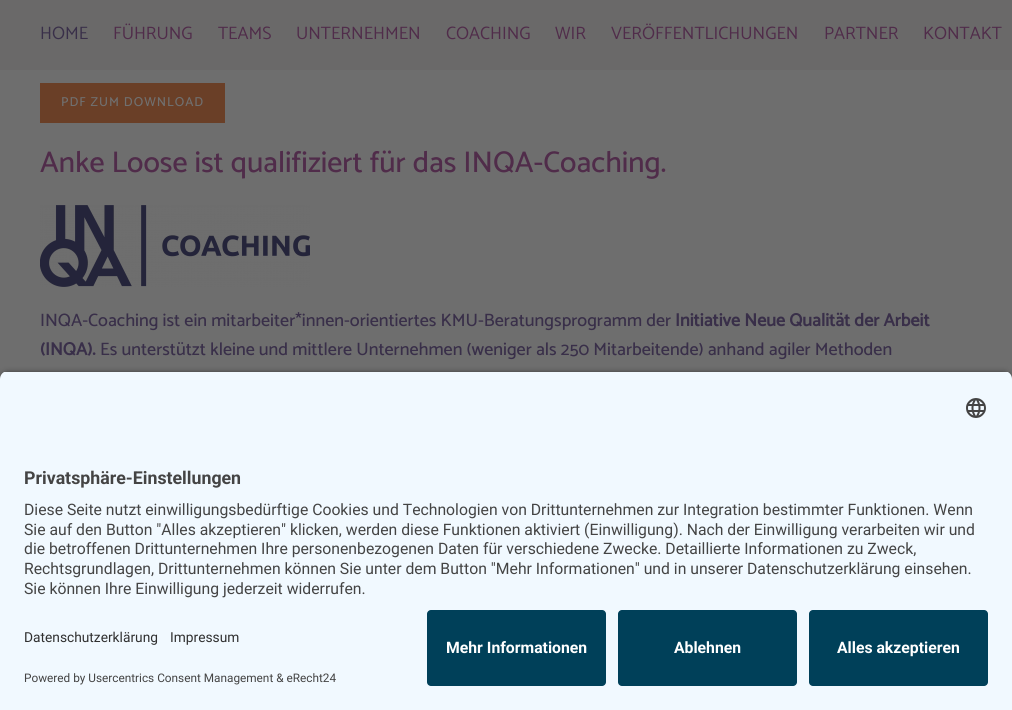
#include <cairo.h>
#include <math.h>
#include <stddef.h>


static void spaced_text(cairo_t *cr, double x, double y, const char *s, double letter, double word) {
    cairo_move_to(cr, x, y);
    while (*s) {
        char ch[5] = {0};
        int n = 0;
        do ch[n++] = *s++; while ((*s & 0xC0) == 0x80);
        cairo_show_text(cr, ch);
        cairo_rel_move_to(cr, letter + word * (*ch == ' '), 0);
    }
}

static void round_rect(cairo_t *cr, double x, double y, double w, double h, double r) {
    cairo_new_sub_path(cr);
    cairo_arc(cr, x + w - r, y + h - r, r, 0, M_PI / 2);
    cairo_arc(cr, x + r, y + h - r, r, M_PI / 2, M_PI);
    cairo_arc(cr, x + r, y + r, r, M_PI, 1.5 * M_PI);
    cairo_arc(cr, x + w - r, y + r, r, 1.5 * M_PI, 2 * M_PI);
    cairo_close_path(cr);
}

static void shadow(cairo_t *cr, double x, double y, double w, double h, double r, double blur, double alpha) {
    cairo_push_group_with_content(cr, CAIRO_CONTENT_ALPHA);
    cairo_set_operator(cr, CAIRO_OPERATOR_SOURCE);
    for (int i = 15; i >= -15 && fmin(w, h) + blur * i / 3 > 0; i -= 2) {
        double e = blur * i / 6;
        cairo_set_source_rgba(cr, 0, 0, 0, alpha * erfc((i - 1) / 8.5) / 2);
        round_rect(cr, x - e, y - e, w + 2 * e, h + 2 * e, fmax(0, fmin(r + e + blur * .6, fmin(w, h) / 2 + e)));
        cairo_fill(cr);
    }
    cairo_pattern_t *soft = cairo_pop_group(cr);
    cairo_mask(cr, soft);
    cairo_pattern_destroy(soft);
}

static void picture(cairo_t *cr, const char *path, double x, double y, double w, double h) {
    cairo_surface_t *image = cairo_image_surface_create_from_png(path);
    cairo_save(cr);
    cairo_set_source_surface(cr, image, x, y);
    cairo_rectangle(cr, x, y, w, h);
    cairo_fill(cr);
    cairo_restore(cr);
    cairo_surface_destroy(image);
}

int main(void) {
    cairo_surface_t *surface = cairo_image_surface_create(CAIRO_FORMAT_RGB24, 1012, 710);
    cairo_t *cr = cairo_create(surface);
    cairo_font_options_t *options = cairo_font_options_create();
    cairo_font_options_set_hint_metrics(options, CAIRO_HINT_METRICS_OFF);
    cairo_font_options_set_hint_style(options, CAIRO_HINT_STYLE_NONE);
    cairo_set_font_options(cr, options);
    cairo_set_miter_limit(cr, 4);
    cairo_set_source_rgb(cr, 0.431, 0.431, 0.431);
    cairo_paint(cr);
    cairo_set_source_rgb(cr, 0.416, 0.412, 0.412);
    cairo_rectangle(cr, 0, 0, 1012, 70);
    cairo_fill(cr);
    cairo_select_font_face(cr, "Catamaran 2 Thin", CAIRO_FONT_SLANT_NORMAL, CAIRO_FONT_WEIGHT_NORMAL);
    cairo_set_font_size(cr, 18);
    cairo_set_source_rgb(cr, 0.224, 0.184, 0.286);
    cairo_move_to(cr, 40, 39);
    cairo_show_text(cr, "HOME");
    cairo_set_source_rgb(cr, 0.314, 0.173, 0.29);
    cairo_move_to(cr, 113, 39);
    cairo_show_text(cr, "FÜHRUNG");
    cairo_move_to(cr, 218, 39);
    cairo_show_text(cr, "TEAMS");
    cairo_move_to(cr, 296, 39);
    cairo_show_text(cr, "UNTERNEHMEN");
    cairo_move_to(cr, 446, 39);
    cairo_show_text(cr, "COACHING");
    cairo_move_to(cr, 555, 39);
    cairo_show_text(cr, "WIR");
    cairo_move_to(cr, 611, 39);
    cairo_show_text(cr, "VERÖFFENTLICHUNGEN");
    cairo_move_to(cr, 824, 39);
    cairo_show_text(cr, "PARTNER");
    cairo_move_to(cr, 923, 39);
    cairo_show_text(cr, "KONTAKT");
    cairo_set_source_rgb(cr, 0.416, 0.247, 0.153);
    cairo_rectangle(cr, 40, 83, 185, 40);
    cairo_fill(cr);
    cairo_select_font_face(cr, "Catamaran Thin", CAIRO_FONT_SLANT_NORMAL, CAIRO_FONT_WEIGHT_NORMAL);
    cairo_set_font_size(cr, 13);
    cairo_set_source_rgb(cr, 0.439, 0.439, 0.439);
    spaced_text(cr, 61, 106, "PDF ZUM DOWNLOAD", 1, 0);
    cairo_set_font_size(cr, 30);
    cairo_set_source_rgb(cr, 0.314, 0.173, 0.29);
    cairo_move_to(cr, 40, 172);
    cairo_show_text(cr, "Anke Loose ist qualifiziert für das INQA-Coaching.");
    picture(cr, "img1.png", 40, 205, 270, 82);
    cairo_set_font_size(cr, 18);
    cairo_set_source_rgb(cr, 0.224, 0.184, 0.286);
    cairo_move_to(cr, 40, 326);
    cairo_show_text(cr, "INQA-Coaching ist ein mitarbeiter*innen-orientiertes KMU-Beratungsprogramm der");
    cairo_select_font_face(cr, "Catamaran", CAIRO_FONT_SLANT_NORMAL, CAIRO_FONT_WEIGHT_BOLD);
    cairo_move_to(cr, 675, 326);
    cairo_show_text(cr, "Initiative Neue Qualität der Arbeit");
    cairo_move_to(cr, 40, 355);
    cairo_show_text(cr, "(INQA).");
    cairo_select_font_face(cr, "Catamaran Thin", CAIRO_FONT_SLANT_NORMAL, CAIRO_FONT_WEIGHT_NORMAL);
    cairo_move_to(cr, 100, 355);
    cairo_show_text(cr, "Es unterstützt kleine und mittlere Unternehmen (weniger als 250 Mitarbeitende) anhand agiler Methoden");
    cairo_set_source_rgb(cr, 0, 0, 0);
    shadow(cr, 0, 374, 1012, 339, 8, 3.5, 0.8);
    cairo_save(cr);
    cairo_new_path(cr);
    cairo_move_to(cr, 8, 371);
    cairo_line_to(cr, 1004, 371);
    cairo_curve_to(cr, 1008.5, 371, 1012, 374.5, 1012, 379);
    cairo_line_to(cr, 1012, 602);
    cairo_line_to(cr, 0, 602);
    cairo_line_to(cr, 0, 379);
    cairo_curve_to(cr, 0, 374.5, 3.5, 371, 8, 371);
    cairo_close_path(cr);
    cairo_clip(cr);
    cairo_set_source_rgb(cr, 0.945, 0.973, 1);
    cairo_rectangle(cr, 0, 372, 1012, 230);
    cairo_fill(cr);
    cairo_restore(cr);
    picture(cr, "img2.png", 966, 398, 20, 20);
    cairo_select_font_face(cr, "Roboto", CAIRO_FONT_SLANT_NORMAL, CAIRO_FONT_WEIGHT_BOLD);
    cairo_set_font_size(cr, 17.75);
    cairo_set_source_rgb(cr, 0.267, 0.267, 0.267);
    cairo_move_to(cr, 24, 484);
    cairo_show_text(cr, "Privatsphäre-Einstellungen");
    cairo_select_font_face(cr, "Roboto", CAIRO_FONT_SLANT_NORMAL, CAIRO_FONT_WEIGHT_NORMAL);
    cairo_set_font_size(cr, 15.75);
    cairo_move_to(cr, 24, 515);
    cairo_show_text(cr, "Diese Seite nutzt einwilligungsbedürftige Cookies und Technologien von Drittunternehmen zur Integration bestimmter Funktionen. Wenn");
    cairo_move_to(cr, 24, 535);
    cairo_show_text(cr, "Sie auf den Button \"Alles akzeptieren\" klicken, werden diese Funktionen aktiviert (Einwilligung). Nach der Einwilligung verarbeiten wir und");
    cairo_move_to(cr, 24, 554);
    cairo_show_text(cr, "die betroffenen Drittunternehmen Ihre personenbezogenen Daten für verschiedene Zwecke. Detaillierte Informationen zu Zweck,");
    cairo_move_to(cr, 24, 574);
    cairo_show_text(cr, "Rechtsgrundlagen, Drittunternehmen können Sie unter dem Button \"Mehr Informationen\" und in unserer Datenschutzerklärung einsehen.");
    cairo_move_to(cr, 24, 594);
    cairo_show_text(cr, "Sie können Ihre Einwilligung jederzeit widerrufen.");
    cairo_set_source_rgb(cr, 0.945, 0.973, 1);
    cairo_rectangle(cr, 0, 602, 1012, 108);
    cairo_fill(cr);
    cairo_set_font_size(cr, 13.75);
    cairo_set_source_rgb(cr, 0.188, 0.188, 0.188);
    cairo_move_to(cr, 24, 642);
    cairo_show_text(cr, "Datenschutzerklärung");
    cairo_move_to(cr, 170, 642);
    cairo_show_text(cr, "Impressum");
    cairo_set_font_size(cr, 11.8);
    cairo_set_source_rgb(cr, 0.267, 0.267, 0.267);
    cairo_move_to(cr, 24, 682);
    cairo_show_text(cr, "Powered by Usercentrics Consent Management & eRecht24");
    cairo_set_source_rgb(cr, 0, 0.251, 0.349);
    round_rect(cr, 427, 610, 179, 76, 4);
    cairo_fill(cr);
    cairo_select_font_face(cr, "Roboto", CAIRO_FONT_SLANT_NORMAL, CAIRO_FONT_WEIGHT_BOLD);
    cairo_set_font_size(cr, 15.75);
    cairo_set_source_rgb(cr, 1, 1, 1);
    cairo_move_to(cr, 446, 653);
    cairo_show_text(cr, "Mehr Informationen");
    cairo_set_source_rgb(cr, 0, 0.251, 0.349);
    round_rect(cr, 618, 610, 179, 76, 4);
    cairo_fill(cr);
    cairo_set_source_rgb(cr, 1, 1, 1);
    cairo_move_to(cr, 674, 653);
    cairo_show_text(cr, "Ablehnen");
    cairo_set_source_rgb(cr, 0, 0.251, 0.349);
    round_rect(cr, 809, 610, 179, 76, 4);
    cairo_fill(cr);
    cairo_set_source_rgb(cr, 1, 1, 1);
    cairo_move_to(cr, 837, 653);
    cairo_show_text(cr, "Alles akzeptieren");
    cairo_surface_write_to_png(surface, "page.png");
    cairo_font_options_destroy(options);
    cairo_destroy(cr);
    cairo_surface_destroy(surface);
    return 0;
}
